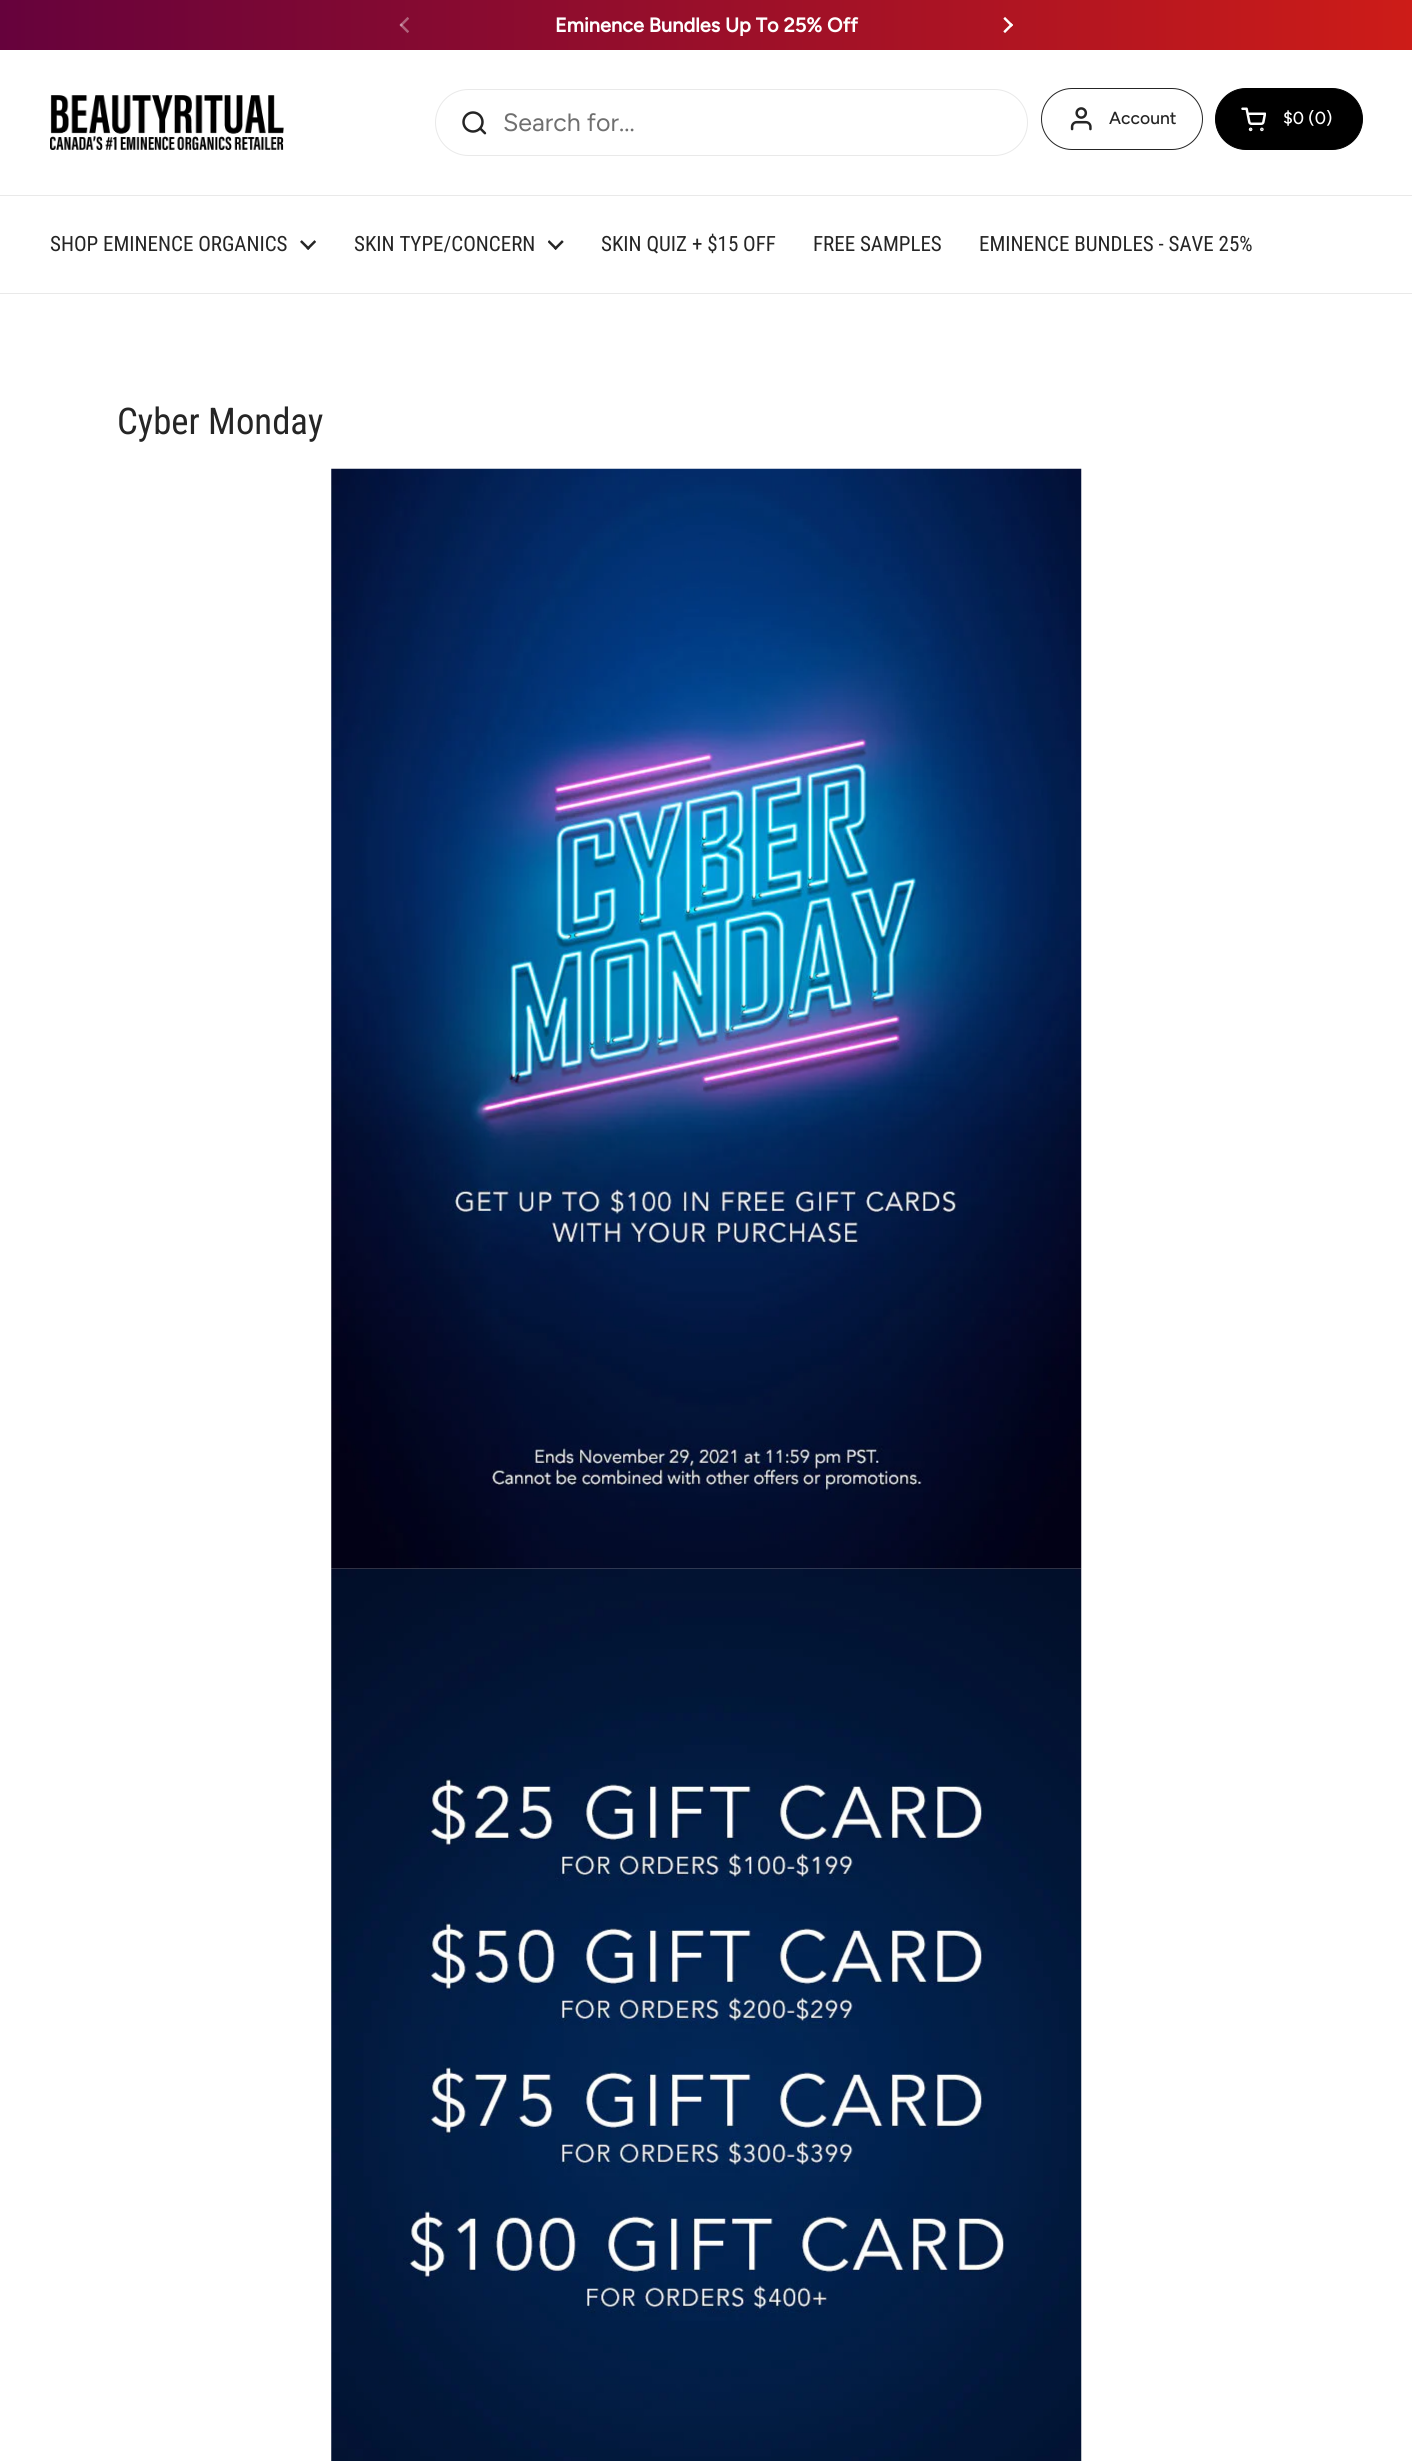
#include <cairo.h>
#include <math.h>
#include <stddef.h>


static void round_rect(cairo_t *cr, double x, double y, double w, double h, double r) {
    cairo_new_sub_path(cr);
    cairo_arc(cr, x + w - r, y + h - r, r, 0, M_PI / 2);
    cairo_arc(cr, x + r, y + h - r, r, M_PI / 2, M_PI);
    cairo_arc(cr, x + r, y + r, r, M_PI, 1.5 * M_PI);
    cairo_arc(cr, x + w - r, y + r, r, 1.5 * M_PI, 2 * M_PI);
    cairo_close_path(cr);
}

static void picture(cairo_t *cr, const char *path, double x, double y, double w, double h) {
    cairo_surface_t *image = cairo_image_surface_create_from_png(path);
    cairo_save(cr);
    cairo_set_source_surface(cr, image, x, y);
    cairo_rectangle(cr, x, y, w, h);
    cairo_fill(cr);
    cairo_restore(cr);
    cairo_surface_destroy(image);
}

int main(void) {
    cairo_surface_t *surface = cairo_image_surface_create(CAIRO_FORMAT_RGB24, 1412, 2461);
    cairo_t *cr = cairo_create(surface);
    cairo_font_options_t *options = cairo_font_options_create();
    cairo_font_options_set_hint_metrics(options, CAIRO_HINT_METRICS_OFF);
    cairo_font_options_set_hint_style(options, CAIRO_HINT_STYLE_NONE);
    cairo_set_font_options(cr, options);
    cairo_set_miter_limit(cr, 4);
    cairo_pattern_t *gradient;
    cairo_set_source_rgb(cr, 1, 1, 1);
    cairo_paint(cr);
    gradient = cairo_pattern_create_linear(0, 25, 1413, 25);
    cairo_pattern_add_color_stop_rgba(gradient, 0, 0.4, 0.008, 0.235, 1);
    cairo_pattern_add_color_stop_rgba(gradient, 1, 0.804, 0.11, 0.094, 1);
    cairo_set_source(cr, gradient);
    cairo_pattern_destroy(gradient);
    cairo_rectangle(cr, 0, 0, 1412, 50);
    cairo_fill(cr);
    picture(cr, "img1.png", 399, 17, 10, 16);
    cairo_select_font_face(cr, "Figtree", CAIRO_FONT_SLANT_NORMAL, CAIRO_FONT_WEIGHT_BOLD);
    cairo_set_font_size(cr, 20);
    cairo_set_source_rgb(cr, 1, 1, 1);
    cairo_move_to(cr, 555, 32);
    cairo_show_text(cr, "Eminence Bundles Up To 25% Off");
    picture(cr, "img2.png", 1003, 17, 10, 16);
    cairo_set_source_rgb(cr, 0.914, 0.914, 0.914);
    cairo_rectangle(cr, 0, 195, 1412, 1);
    cairo_fill(cr);
    picture(cr, "img3.png", 50, 95, 234, 55);
    round_rect(cr, 435.5, 89.5, 592, 66, 33);
    cairo_set_line_width(cr, 1);
    cairo_stroke(cr);
    picture(cr, "img4.png", 462, 111, 25, 24);
    cairo_select_font_face(cr, "Figtree", CAIRO_FONT_SLANT_NORMAL, CAIRO_FONT_WEIGHT_NORMAL);
    cairo_set_font_size(cr, 25);
    cairo_set_source_rgb(cr, 0.435, 0.435, 0.435);
    cairo_move_to(cr, 503, 131);
    cairo_show_text(cr, "Search for...");
    round_rect(cr, 1041.5, 88.5, 161, 61, 30.5);
    cairo_set_source_rgb(cr, 0.145, 0.145, 0.145);
    cairo_stroke(cr);
    picture(cr, "img5.png", 1070, 107, 22, 24);
    cairo_select_font_face(cr, "Figtree Medium", CAIRO_FONT_SLANT_NORMAL, CAIRO_FONT_WEIGHT_NORMAL);
    cairo_set_font_size(cr, 17.5);
    cairo_move_to(cr, 1109, 124);
    cairo_show_text(cr, "Account");
    cairo_set_source_rgb(cr, 0, 0, 0);
    round_rect(cr, 1215.5, 88.5, 147, 61, 30.5);
    cairo_fill_preserve(cr);
    cairo_stroke(cr);
    picture(cr, "img6.png", 1241, 107, 25, 25);
    cairo_set_source_rgb(cr, 1, 1, 1);
    cairo_move_to(cr, 1283, 124);
    cairo_show_text(cr, "$0 (0)");
    cairo_set_source_rgb(cr, 0.914, 0.914, 0.914);
    cairo_rectangle(cr, 0, 293, 1412, 1);
    cairo_fill(cr);
    cairo_select_font_face(cr, "Roboto Condensed", CAIRO_FONT_SLANT_NORMAL, CAIRO_FONT_WEIGHT_NORMAL);
    cairo_set_font_size(cr, 21);
    cairo_set_source_rgb(cr, 0.145, 0.145, 0.145);
    cairo_move_to(cr, 50, 251);
    cairo_show_text(cr, "SHOP EMINENCE ORGANICS");
    picture(cr, "img7.png", 300, 240, 16, 10);
    cairo_move_to(cr, 354, 251);
    cairo_show_text(cr, "SKIN TYPE/CONCERN");
    picture(cr, "img8.png", 548, 240, 16, 10);
    cairo_move_to(cr, 601, 251);
    cairo_show_text(cr, "SKIN QUIZ + $15 OFF");
    cairo_move_to(cr, 813, 251);
    cairo_show_text(cr, "FREE SAMPLES");
    cairo_move_to(cr, 979, 251);
    cairo_show_text(cr, "EMINENCE BUNDLES - SAVE 25%");
    cairo_set_font_size(cr, 36.75);
    cairo_move_to(cr, 117, 434);
    cairo_show_text(cr, "Cyber Monday");
    picture(cr, "img9.png", 331, 468, 751, 1101);
    picture(cr, "img10.png", 331, 1568, 751, 893);
    cairo_surface_write_to_png(surface, "page.png");
    cairo_font_options_destroy(options);
    cairo_destroy(cr);
    cairo_surface_destroy(surface);
    return 0;
}
